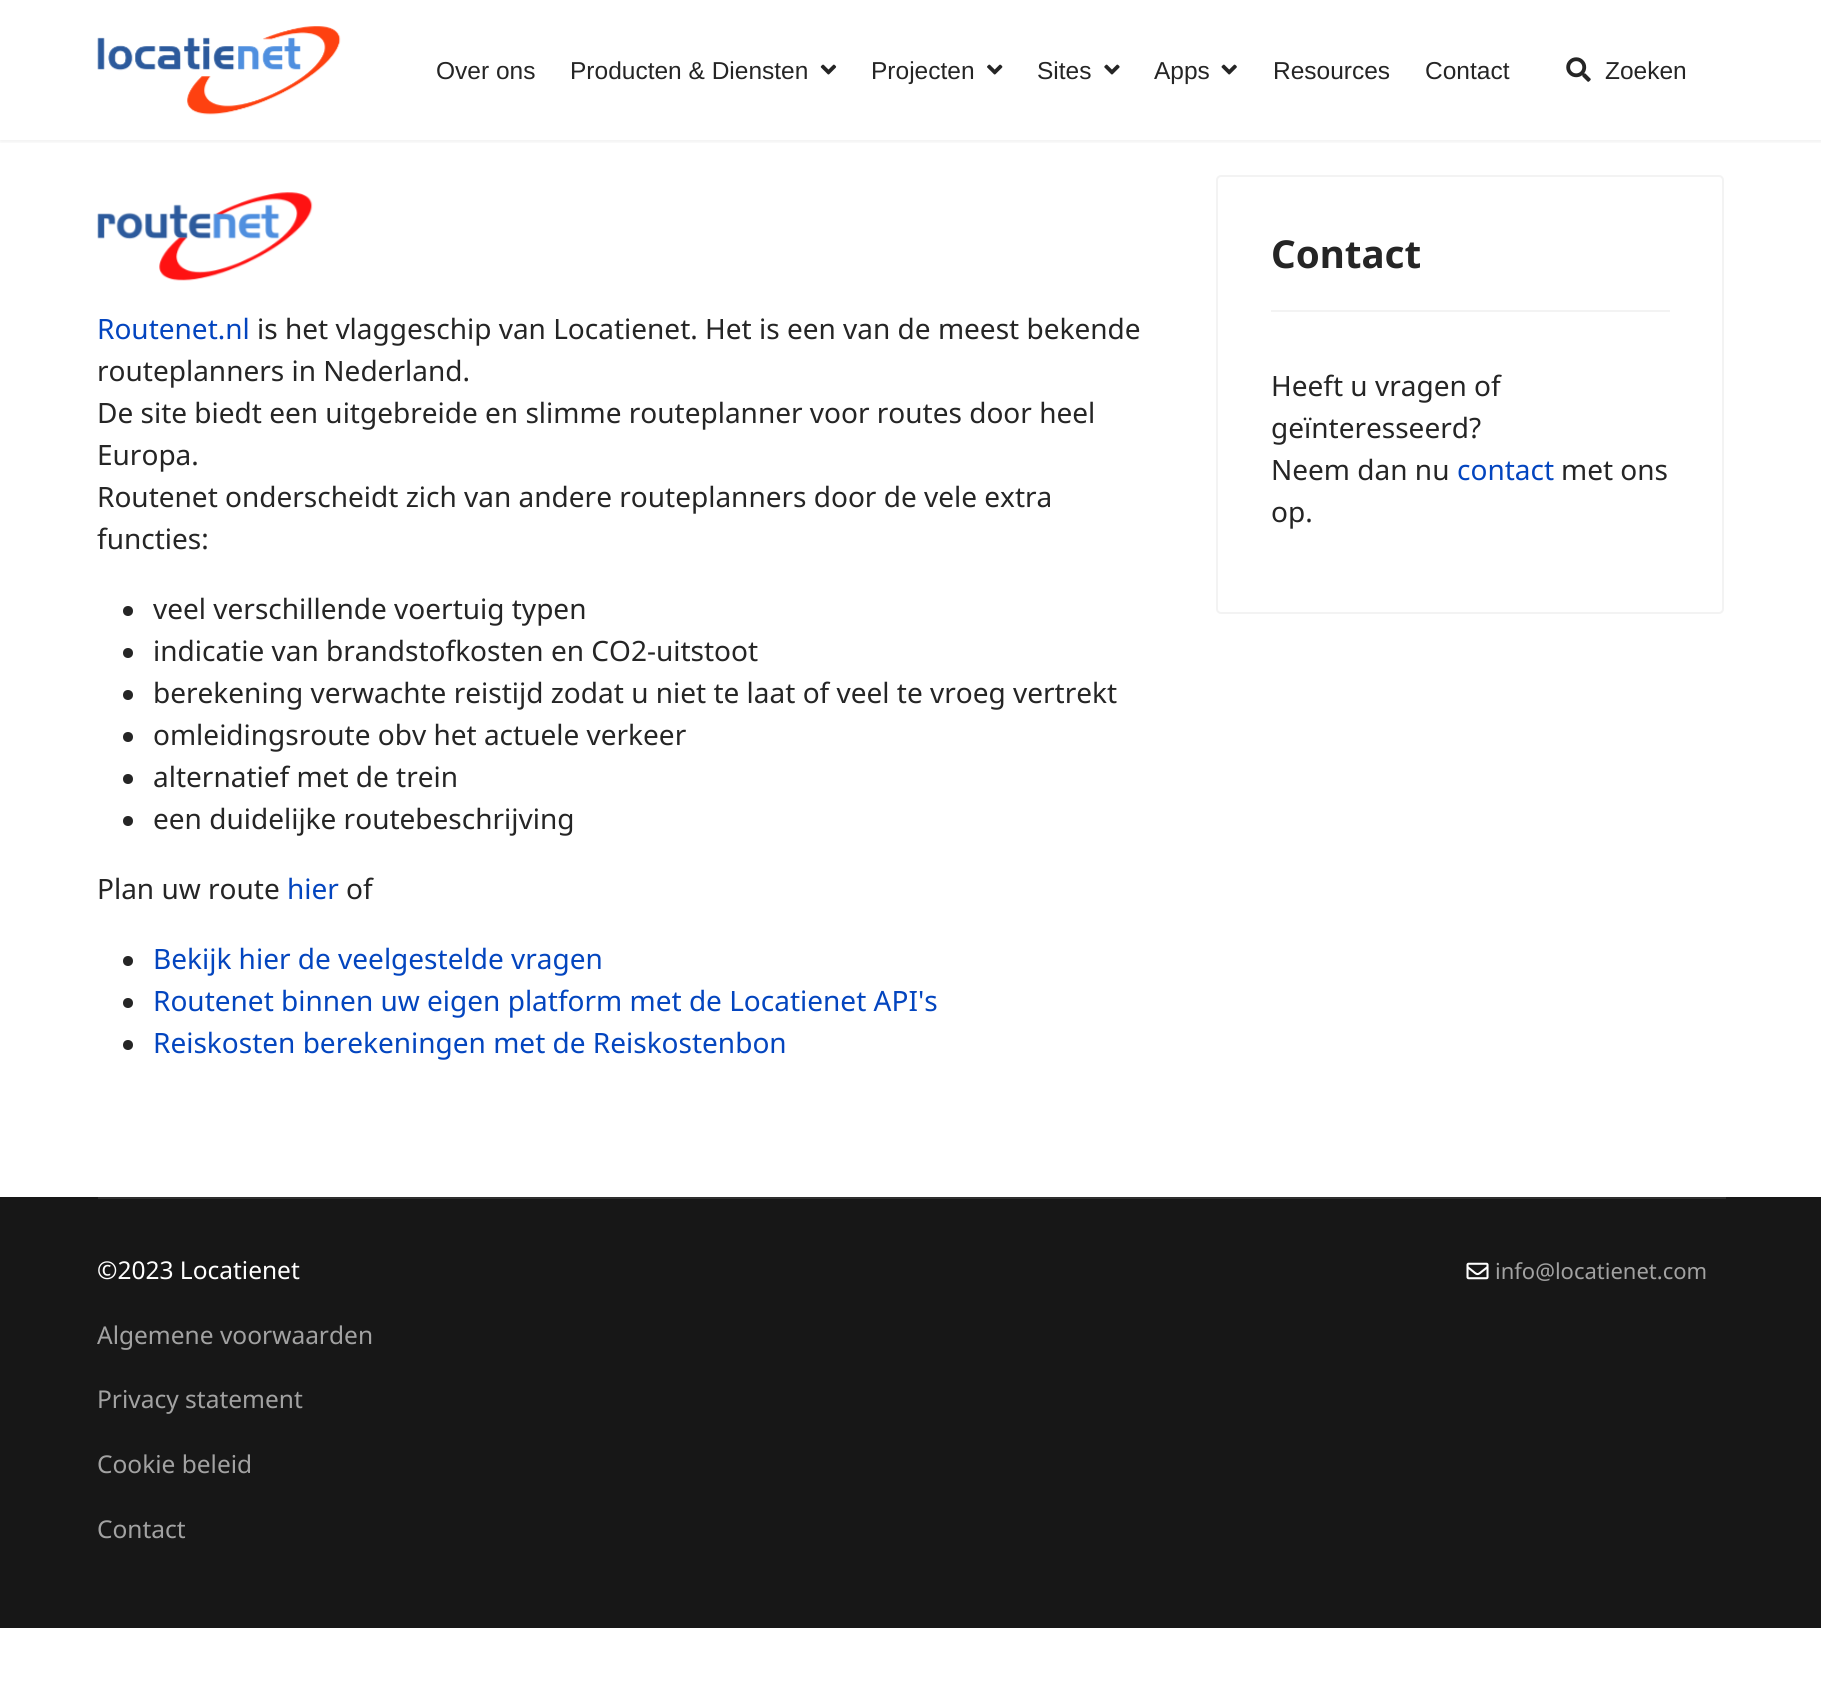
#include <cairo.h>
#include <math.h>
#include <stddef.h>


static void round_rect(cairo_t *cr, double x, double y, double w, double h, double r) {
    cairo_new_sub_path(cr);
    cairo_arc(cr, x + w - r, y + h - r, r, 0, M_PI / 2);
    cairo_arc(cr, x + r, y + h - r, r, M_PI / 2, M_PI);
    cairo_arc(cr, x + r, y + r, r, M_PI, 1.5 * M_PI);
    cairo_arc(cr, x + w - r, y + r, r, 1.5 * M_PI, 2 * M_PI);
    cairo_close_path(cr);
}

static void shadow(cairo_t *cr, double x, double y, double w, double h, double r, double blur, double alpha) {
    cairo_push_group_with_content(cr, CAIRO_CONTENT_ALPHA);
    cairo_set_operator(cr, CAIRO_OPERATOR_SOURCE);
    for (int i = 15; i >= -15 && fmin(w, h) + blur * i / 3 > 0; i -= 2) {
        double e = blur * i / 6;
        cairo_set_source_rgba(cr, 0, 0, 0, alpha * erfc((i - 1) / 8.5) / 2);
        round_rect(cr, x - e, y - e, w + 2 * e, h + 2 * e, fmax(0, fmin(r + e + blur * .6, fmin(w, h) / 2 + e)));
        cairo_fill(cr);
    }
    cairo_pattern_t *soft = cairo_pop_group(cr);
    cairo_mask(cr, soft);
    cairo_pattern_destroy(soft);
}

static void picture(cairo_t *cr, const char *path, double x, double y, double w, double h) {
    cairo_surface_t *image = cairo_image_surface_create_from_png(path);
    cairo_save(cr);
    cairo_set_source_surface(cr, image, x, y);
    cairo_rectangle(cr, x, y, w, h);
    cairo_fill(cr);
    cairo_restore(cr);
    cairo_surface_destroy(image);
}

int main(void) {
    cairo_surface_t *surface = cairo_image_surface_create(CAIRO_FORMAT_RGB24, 1821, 1700);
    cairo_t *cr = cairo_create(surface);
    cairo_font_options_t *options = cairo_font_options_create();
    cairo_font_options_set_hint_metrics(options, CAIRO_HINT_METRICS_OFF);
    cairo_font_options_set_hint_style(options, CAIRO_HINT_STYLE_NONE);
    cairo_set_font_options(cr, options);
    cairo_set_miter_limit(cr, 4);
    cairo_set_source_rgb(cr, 1, 1, 1);
    cairo_paint(cr);
    cairo_save(cr);
    cairo_rectangle(cr, 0, 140, 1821, 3);
    cairo_clip(cr);
    cairo_set_source_rgb(cr, 0, 0, 0);
    shadow(cr, 0, 0, 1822, 140, 0, 3.5, 0.1);
    cairo_restore(cr);
    picture(cr, "img1.png", 97, 26, 244, 89);
    cairo_select_font_face(cr, "Liberation Sans", CAIRO_FONT_SLANT_NORMAL, CAIRO_FONT_WEIGHT_NORMAL);
    cairo_set_font_size(cr, 24.5);
    cairo_set_source_rgb(cr, 0.145, 0.145, 0.145);
    cairo_move_to(cr, 436, 79);
    cairo_show_text(cr, "Over ons");
    cairo_move_to(cr, 570, 79);
    cairo_show_text(cr, "Producten & Diensten");
    picture(cr, "img2.png", 820, 64, 17, 11);
    cairo_move_to(cr, 871, 79);
    cairo_show_text(cr, "Projecten");
    picture(cr, "img3.png", 987, 64, 16, 11);
    cairo_move_to(cr, 1037, 79);
    cairo_show_text(cr, "Sites");
    picture(cr, "img4.png", 1104, 64, 16, 11);
    cairo_move_to(cr, 1154, 79);
    cairo_show_text(cr, "Apps");
    picture(cr, "img5.png", 1221, 64, 16, 11);
    cairo_move_to(cr, 1273, 79);
    cairo_show_text(cr, "Resources");
    cairo_move_to(cr, 1425, 79);
    cairo_show_text(cr, "Contact");
    picture(cr, "img6.png", 1566, 57, 25, 25);
    cairo_move_to(cr, 1605, 79);
    cairo_show_text(cr, "Zoeken");
    picture(cr, "img7.png", 97, 192, 216, 89);
    cairo_select_font_face(cr, "Noto Sans", CAIRO_FONT_SLANT_NORMAL, CAIRO_FONT_WEIGHT_NORMAL);
    cairo_set_font_size(cr, 28);
    cairo_set_source_rgb(cr, 0.012, 0.271, 0.749);
    cairo_move_to(cr, 97, 339);
    cairo_show_text(cr, "Routenet.nl");
    cairo_set_source_rgb(cr, 0.145, 0.145, 0.145);
    cairo_move_to(cr, 257, 339);
    cairo_show_text(cr, "is het vlaggeschip van Locatienet. Het is een van de meest bekende");
    cairo_move_to(cr, 97, 381);
    cairo_show_text(cr, "routeplanners in Nederland.");
    cairo_move_to(cr, 97, 423);
    cairo_show_text(cr, "De site biedt een uitgebreide en slimme routeplanner voor routes door heel");
    cairo_move_to(cr, 97, 465);
    cairo_show_text(cr, "Europa.");
    cairo_move_to(cr, 97, 507);
    cairo_show_text(cr, "Routenet onderscheidt zich van andere routeplanners door de vele extra");
    cairo_move_to(cr, 97, 549);
    cairo_show_text(cr, "functies:");
    cairo_new_path(cr);
    cairo_arc(cr, 128, 611, 5, 0, 2 * M_PI);
    cairo_fill(cr);
    cairo_move_to(cr, 153, 619);
    cairo_show_text(cr, "veel verschillende voertuig typen");
    cairo_new_path(cr);
    cairo_arc(cr, 128, 653, 5, 0, 2 * M_PI);
    cairo_fill(cr);
    cairo_move_to(cr, 153, 661);
    cairo_show_text(cr, "indicatie van brandstofkosten en CO2-uitstoot");
    cairo_new_path(cr);
    cairo_arc(cr, 128, 695, 5, 0, 2 * M_PI);
    cairo_fill(cr);
    cairo_move_to(cr, 153, 703);
    cairo_show_text(cr, "berekening verwachte reistijd zodat u niet te laat of veel te vroeg vertrekt");
    cairo_new_path(cr);
    cairo_arc(cr, 128, 737, 5, 0, 2 * M_PI);
    cairo_fill(cr);
    cairo_move_to(cr, 153, 745);
    cairo_show_text(cr, "omleidingsroute obv het actuele verkeer");
    cairo_new_path(cr);
    cairo_arc(cr, 128, 779, 5, 0, 2 * M_PI);
    cairo_fill(cr);
    cairo_move_to(cr, 153, 787);
    cairo_show_text(cr, "alternatief met de trein");
    cairo_new_path(cr);
    cairo_arc(cr, 128, 821, 5, 0, 2 * M_PI);
    cairo_fill(cr);
    cairo_move_to(cr, 153, 829);
    cairo_show_text(cr, "een duidelijke routebeschrijving");
    cairo_move_to(cr, 97, 899);
    cairo_show_text(cr, "Plan uw route");
    cairo_set_source_rgb(cr, 0.012, 0.271, 0.749);
    cairo_move_to(cr, 287, 899);
    cairo_show_text(cr, "hier");
    cairo_set_source_rgb(cr, 0.145, 0.145, 0.145);
    cairo_move_to(cr, 346, 899);
    cairo_show_text(cr, "of");
    cairo_new_path(cr);
    cairo_arc(cr, 128, 961, 5, 0, 2 * M_PI);
    cairo_fill(cr);
    cairo_set_source_rgb(cr, 0.012, 0.271, 0.749);
    cairo_move_to(cr, 153, 969);
    cairo_show_text(cr, "Bekijk hier de veelgestelde vragen");
    cairo_set_source_rgb(cr, 0.145, 0.145, 0.145);
    cairo_new_path(cr);
    cairo_arc(cr, 128, 1003, 5, 0, 2 * M_PI);
    cairo_fill(cr);
    cairo_set_source_rgb(cr, 0.012, 0.271, 0.749);
    cairo_move_to(cr, 153, 1011);
    cairo_show_text(cr, "Routenet binnen uw eigen platform met de Locatienet API's");
    cairo_set_source_rgb(cr, 0.145, 0.145, 0.145);
    cairo_new_path(cr);
    cairo_arc(cr, 128, 1045, 5, 0, 2 * M_PI);
    cairo_fill(cr);
    cairo_set_source_rgb(cr, 0.012, 0.271, 0.749);
    cairo_move_to(cr, 153, 1053);
    cairo_show_text(cr, "Reiskosten berekeningen met de Reiskostenbon");
    round_rect(cr, 1217, 176, 506, 437, 4);
    cairo_set_source_rgb(cr, 0.953, 0.953, 0.953);
    cairo_stroke(cr);
    cairo_rectangle(cr, 1271, 310, 399, 2);
    cairo_fill(cr);
    cairo_select_font_face(cr, "Noto Sans", CAIRO_FONT_SLANT_NORMAL, CAIRO_FONT_WEIGHT_BOLD);
    cairo_set_font_size(cr, 38.5);
    cairo_set_source_rgb(cr, 0.145, 0.145, 0.145);
    cairo_move_to(cr, 1271, 268);
    cairo_show_text(cr, "Contact");
    cairo_select_font_face(cr, "Noto Sans", CAIRO_FONT_SLANT_NORMAL, CAIRO_FONT_WEIGHT_NORMAL);
    cairo_set_font_size(cr, 28);
    cairo_move_to(cr, 1271, 396);
    cairo_show_text(cr, "Heeft u vragen of");
    cairo_move_to(cr, 1271, 438);
    cairo_show_text(cr, "geïnteresseerd?");
    cairo_move_to(cr, 1271, 480);
    cairo_show_text(cr, "Neem dan nu");
    cairo_set_source_rgb(cr, 0.012, 0.271, 0.749);
    cairo_move_to(cr, 1457, 480);
    cairo_show_text(cr, "contact");
    cairo_set_source_rgb(cr, 0.145, 0.145, 0.145);
    cairo_move_to(cr, 1561, 480);
    cairo_show_text(cr, "met ons");
    cairo_move_to(cr, 1271, 522);
    cairo_show_text(cr, "op.");
    cairo_set_source_rgb(cr, 0.09, 0.09, 0.09);
    cairo_rectangle(cr, 0, 1197, 1821, 431);
    cairo_fill(cr);
    cairo_set_source_rgb(cr, 0.18, 0.18, 0.18);
    cairo_rectangle(cr, 98, 1197, 1628, 2);
    cairo_fill(cr);
    cairo_set_font_size(cr, 24.5);
    cairo_set_source_rgb(cr, 1, 1, 1);
    cairo_move_to(cr, 97, 1279);
    cairo_show_text(cr, "©2023 Locatienet");
    cairo_set_source_rgb(cr, 0.635, 0.635, 0.635);
    cairo_move_to(cr, 97, 1344);
    cairo_show_text(cr, "Algemene voorwaarden");
    cairo_move_to(cr, 97, 1408);
    cairo_show_text(cr, "Privacy statement");
    cairo_move_to(cr, 97, 1473);
    cairo_show_text(cr, "Cookie beleid");
    cairo_move_to(cr, 97, 1538);
    cairo_show_text(cr, "Contact");
    picture(cr, "img8.png", 1466, 1262, 23, 18);
    cairo_set_font_size(cr, 22);
    cairo_move_to(cr, 1495, 1279);
    cairo_show_text(cr, "info@locatienet.com");
    cairo_surface_write_to_png(surface, "page.png");
    cairo_font_options_destroy(options);
    cairo_destroy(cr);
    cairo_surface_destroy(surface);
    return 0;
}
